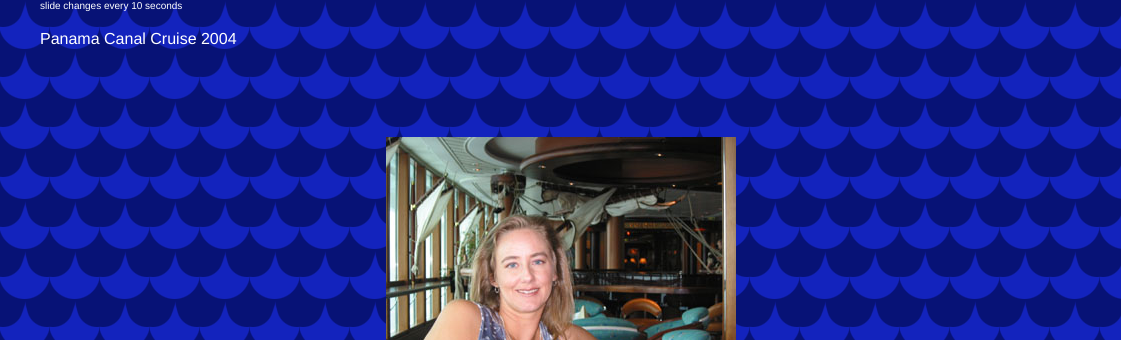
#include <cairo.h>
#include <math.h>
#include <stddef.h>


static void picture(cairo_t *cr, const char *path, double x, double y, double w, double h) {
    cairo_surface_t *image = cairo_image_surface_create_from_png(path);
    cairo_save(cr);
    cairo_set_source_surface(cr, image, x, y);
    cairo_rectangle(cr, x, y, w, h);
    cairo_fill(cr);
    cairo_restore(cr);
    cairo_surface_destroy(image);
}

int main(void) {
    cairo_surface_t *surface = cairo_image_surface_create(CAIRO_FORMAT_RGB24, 1121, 340);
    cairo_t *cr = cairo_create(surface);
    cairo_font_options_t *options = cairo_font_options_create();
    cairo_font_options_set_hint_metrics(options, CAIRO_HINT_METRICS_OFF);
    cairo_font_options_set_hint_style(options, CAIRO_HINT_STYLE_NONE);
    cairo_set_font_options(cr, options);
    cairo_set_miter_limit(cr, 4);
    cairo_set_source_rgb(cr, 1, 1, 1);
    cairo_paint(cr);
    picture(cr, "img1.png", 0, 0, 1121, 340);
    cairo_select_font_face(cr, "Liberation Sans", CAIRO_FONT_SLANT_NORMAL, CAIRO_FONT_WEIGHT_NORMAL);
    cairo_set_font_size(cr, 10);
    cairo_set_source_rgb(cr, 1, 1, 1);
    cairo_move_to(cr, 40, 9);
    cairo_show_text(cr, "slide changes every 10 seconds");
    cairo_set_font_size(cr, 16);
    cairo_move_to(cr, 40, 44);
    cairo_show_text(cr, "Panama Canal Cruise 2004");
    picture(cr, "img2.png", 386, 137, 350, 203);
    cairo_surface_write_to_png(surface, "page.png");
    cairo_font_options_destroy(options);
    cairo_destroy(cr);
    cairo_surface_destroy(surface);
    return 0;
}
